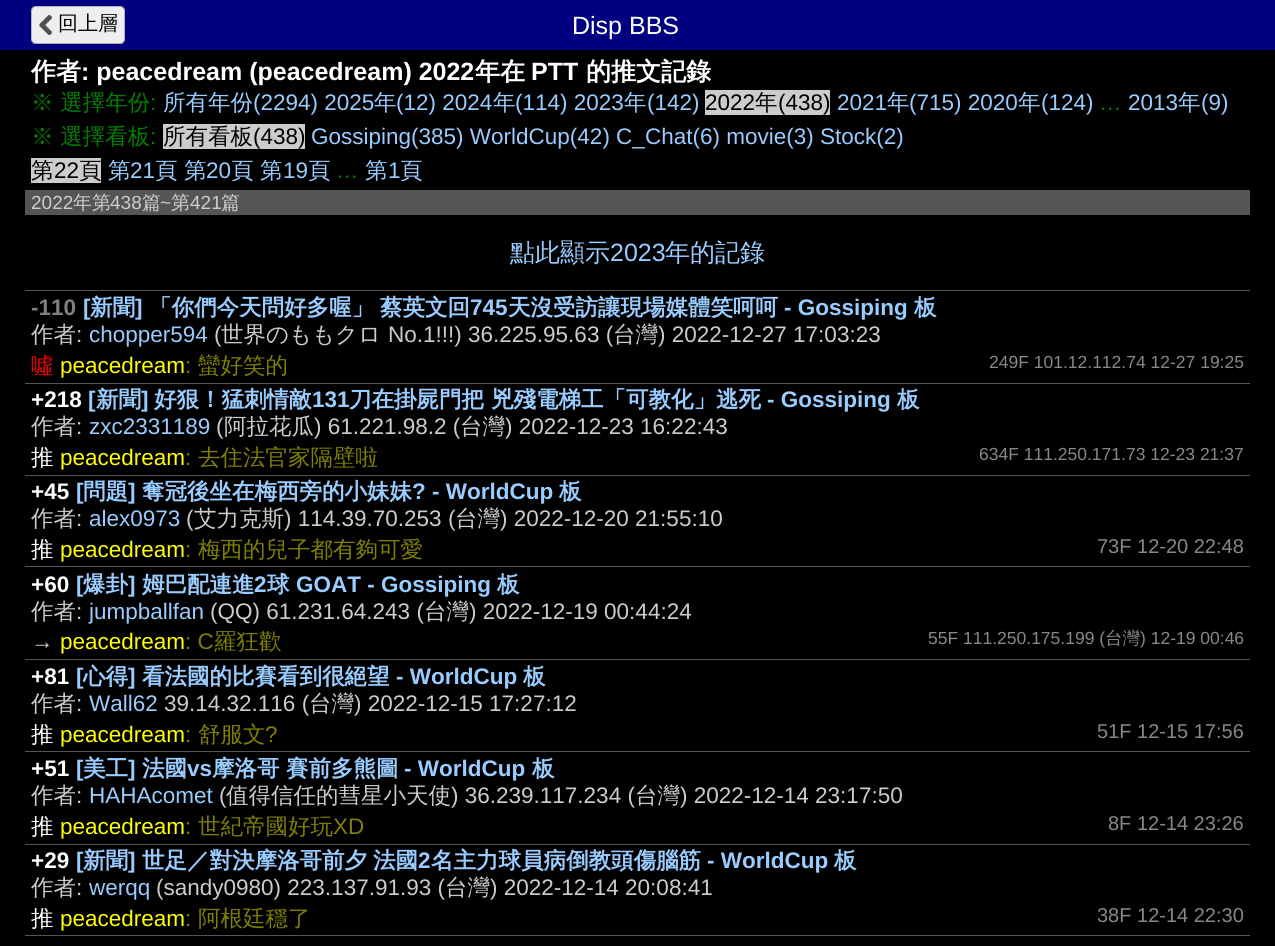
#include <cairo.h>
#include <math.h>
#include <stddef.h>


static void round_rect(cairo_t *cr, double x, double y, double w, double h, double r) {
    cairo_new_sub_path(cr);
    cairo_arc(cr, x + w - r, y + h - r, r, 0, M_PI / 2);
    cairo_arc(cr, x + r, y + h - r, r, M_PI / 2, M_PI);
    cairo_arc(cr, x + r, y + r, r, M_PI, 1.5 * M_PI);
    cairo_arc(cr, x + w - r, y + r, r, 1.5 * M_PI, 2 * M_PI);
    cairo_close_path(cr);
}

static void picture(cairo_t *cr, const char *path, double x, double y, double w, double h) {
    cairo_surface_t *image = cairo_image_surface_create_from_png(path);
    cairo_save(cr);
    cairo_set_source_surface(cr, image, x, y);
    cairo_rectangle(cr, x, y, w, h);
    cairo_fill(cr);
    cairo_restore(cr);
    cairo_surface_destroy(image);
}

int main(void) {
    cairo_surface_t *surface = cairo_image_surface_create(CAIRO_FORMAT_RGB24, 1275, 946);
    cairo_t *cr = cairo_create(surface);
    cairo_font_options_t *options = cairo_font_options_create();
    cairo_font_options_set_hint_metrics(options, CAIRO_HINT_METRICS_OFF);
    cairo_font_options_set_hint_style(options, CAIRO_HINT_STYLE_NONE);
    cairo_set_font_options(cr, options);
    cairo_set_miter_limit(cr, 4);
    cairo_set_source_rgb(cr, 0, 0, 0);
    cairo_paint(cr);
    cairo_set_source_rgb(cr, 0, 0, 0.502);
    cairo_rectangle(cr, 0, 0, 1275, 50);
    cairo_fill(cr);
    cairo_set_source_rgb(cr, 0.933, 0.933, 0.933);
    round_rect(cr, 31, 6, 94, 38, 5);
    cairo_fill(cr);
    picture(cr, "img1.png", 39, 15, 13, 20);
    round_rect(cr, 31.5, 6.5, 93, 37, 4.5);
    cairo_set_source_rgba(cr, 0, 0, 0, 0.25);
    cairo_set_line_width(cr, 1);
    cairo_stroke(cr);
    cairo_select_font_face(cr, "WenQuanYi Zen Hei Medium", CAIRO_FONT_SLANT_NORMAL, CAIRO_FONT_WEIGHT_NORMAL);
    cairo_set_font_size(cr, 20);
    cairo_set_source_rgb(cr, 0, 0, 0);
    cairo_move_to(cr, 58, 30);
    cairo_show_text(cr, "回上層");
    cairo_select_font_face(cr, "Liberation Sans", CAIRO_FONT_SLANT_NORMAL, CAIRO_FONT_WEIGHT_NORMAL);
    cairo_set_font_size(cr, 25);
    cairo_set_source_rgb(cr, 1, 1, 1);
    cairo_move_to(cr, 572, 34);
    cairo_show_text(cr, "Disp BBS");
    cairo_select_font_face(cr, "WenQuanYi Zen Hei", CAIRO_FONT_SLANT_NORMAL, CAIRO_FONT_WEIGHT_BOLD);
    cairo_move_to(cr, 31, 80);
    cairo_show_text(cr, "作者");
    cairo_select_font_face(cr, "Liberation Sans", CAIRO_FONT_SLANT_NORMAL, CAIRO_FONT_WEIGHT_BOLD);
    cairo_move_to(cr, 81, 80);
    cairo_show_text(cr, ": peacedream (peacedream) 2022");
    cairo_select_font_face(cr, "WenQuanYi Zen Hei", CAIRO_FONT_SLANT_NORMAL, CAIRO_FONT_WEIGHT_BOLD);
    cairo_move_to(cr, 475, 80);
    cairo_show_text(cr, "年在");
    cairo_select_font_face(cr, "Liberation Sans", CAIRO_FONT_SLANT_NORMAL, CAIRO_FONT_WEIGHT_BOLD);
    cairo_move_to(cr, 531, 80);
    cairo_show_text(cr, "PTT");
    cairo_select_font_face(cr, "WenQuanYi Zen Hei", CAIRO_FONT_SLANT_NORMAL, CAIRO_FONT_WEIGHT_BOLD);
    cairo_move_to(cr, 586, 80);
    cairo_show_text(cr, "的推文記錄");
    cairo_set_source_rgb(cr, 0.333, 0.333, 0.333);
    cairo_rectangle(cr, 25, 190, 1225, 25);
    cairo_fill(cr);
    cairo_select_font_face(cr, "WenQuanYi Zen Hei Medium", CAIRO_FONT_SLANT_NORMAL, CAIRO_FONT_WEIGHT_NORMAL);
    cairo_set_font_size(cr, 22.5);
    cairo_set_source_rgb(cr, 0, 0.502, 0);
    cairo_move_to(cr, 31, 110);
    cairo_show_text(cr, "※ 選擇年份");
    cairo_select_font_face(cr, "Liberation Sans", CAIRO_FONT_SLANT_NORMAL, CAIRO_FONT_WEIGHT_NORMAL);
    cairo_move_to(cr, 150, 110);
    cairo_show_text(cr, ":");
    cairo_select_font_face(cr, "WenQuanYi Zen Hei Medium", CAIRO_FONT_SLANT_NORMAL, CAIRO_FONT_WEIGHT_NORMAL);
    cairo_set_source_rgb(cr, 0.6, 0.8, 1);
    cairo_move_to(cr, 163, 110);
    cairo_show_text(cr, "所有年份");
    cairo_select_font_face(cr, "Liberation Sans", CAIRO_FONT_SLANT_NORMAL, CAIRO_FONT_WEIGHT_NORMAL);
    cairo_move_to(cr, 253, 110);
    cairo_show_text(cr, "(2294) 2025");
    cairo_select_font_face(cr, "WenQuanYi Zen Hei Medium", CAIRO_FONT_SLANT_NORMAL, CAIRO_FONT_WEIGHT_NORMAL);
    cairo_move_to(cr, 374, 110);
    cairo_show_text(cr, "年");
    cairo_select_font_face(cr, "Liberation Sans", CAIRO_FONT_SLANT_NORMAL, CAIRO_FONT_WEIGHT_NORMAL);
    cairo_move_to(cr, 396, 110);
    cairo_show_text(cr, "(12) 2024");
    cairo_select_font_face(cr, "WenQuanYi Zen Hei Medium", CAIRO_FONT_SLANT_NORMAL, CAIRO_FONT_WEIGHT_NORMAL);
    cairo_move_to(cr, 493, 110);
    cairo_show_text(cr, "年");
    cairo_select_font_face(cr, "Liberation Sans", CAIRO_FONT_SLANT_NORMAL, CAIRO_FONT_WEIGHT_NORMAL);
    cairo_move_to(cr, 515, 110);
    cairo_show_text(cr, "(114) 2023");
    cairo_select_font_face(cr, "WenQuanYi Zen Hei Medium", CAIRO_FONT_SLANT_NORMAL, CAIRO_FONT_WEIGHT_NORMAL);
    cairo_move_to(cr, 624, 110);
    cairo_show_text(cr, "年");
    cairo_select_font_face(cr, "Liberation Sans", CAIRO_FONT_SLANT_NORMAL, CAIRO_FONT_WEIGHT_NORMAL);
    cairo_move_to(cr, 647, 110);
    cairo_show_text(cr, "(142)");
    cairo_set_source_rgb(cr, 0.8, 0.8, 0.8);
    cairo_rectangle(cr, 705, 90, 125, 25);
    cairo_fill(cr);
    cairo_set_source_rgb(cr, 0, 0, 0);
    cairo_move_to(cr, 705, 110);
    cairo_show_text(cr, "2022");
    cairo_select_font_face(cr, "WenQuanYi Zen Hei Medium", CAIRO_FONT_SLANT_NORMAL, CAIRO_FONT_WEIGHT_NORMAL);
    cairo_move_to(cr, 755, 110);
    cairo_show_text(cr, "年");
    cairo_select_font_face(cr, "Liberation Sans", CAIRO_FONT_SLANT_NORMAL, CAIRO_FONT_WEIGHT_NORMAL);
    cairo_move_to(cr, 778, 110);
    cairo_show_text(cr, "(438)");
    cairo_set_source_rgb(cr, 0.6, 0.8, 1);
    cairo_move_to(cr, 837, 110);
    cairo_show_text(cr, "2021");
    cairo_select_font_face(cr, "WenQuanYi Zen Hei Medium", CAIRO_FONT_SLANT_NORMAL, CAIRO_FONT_WEIGHT_NORMAL);
    cairo_move_to(cr, 887, 110);
    cairo_show_text(cr, "年");
    cairo_select_font_face(cr, "Liberation Sans", CAIRO_FONT_SLANT_NORMAL, CAIRO_FONT_WEIGHT_NORMAL);
    cairo_move_to(cr, 909, 110);
    cairo_show_text(cr, "(715) 2020");
    cairo_select_font_face(cr, "WenQuanYi Zen Hei Medium", CAIRO_FONT_SLANT_NORMAL, CAIRO_FONT_WEIGHT_NORMAL);
    cairo_move_to(cr, 1018, 110);
    cairo_show_text(cr, "年");
    cairo_select_font_face(cr, "Liberation Sans", CAIRO_FONT_SLANT_NORMAL, CAIRO_FONT_WEIGHT_NORMAL);
    cairo_move_to(cr, 1041, 110);
    cairo_show_text(cr, "(124)");
    cairo_set_source_rgb(cr, 0, 0.502, 0);
    cairo_move_to(cr, 1099, 110);
    cairo_show_text(cr, "…");
    cairo_set_source_rgb(cr, 0.6, 0.8, 1);
    cairo_move_to(cr, 1128, 110);
    cairo_show_text(cr, "2013");
    cairo_select_font_face(cr, "WenQuanYi Zen Hei Medium", CAIRO_FONT_SLANT_NORMAL, CAIRO_FONT_WEIGHT_NORMAL);
    cairo_move_to(cr, 1178, 110);
    cairo_show_text(cr, "年");
    cairo_select_font_face(cr, "Liberation Sans", CAIRO_FONT_SLANT_NORMAL, CAIRO_FONT_WEIGHT_NORMAL);
    cairo_move_to(cr, 1201, 110);
    cairo_show_text(cr, "(9)");
    cairo_select_font_face(cr, "WenQuanYi Zen Hei Medium", CAIRO_FONT_SLANT_NORMAL, CAIRO_FONT_WEIGHT_NORMAL);
    cairo_set_source_rgb(cr, 0, 0.502, 0);
    cairo_move_to(cr, 31, 144);
    cairo_show_text(cr, "※ 選擇看板");
    cairo_select_font_face(cr, "Liberation Sans", CAIRO_FONT_SLANT_NORMAL, CAIRO_FONT_WEIGHT_NORMAL);
    cairo_move_to(cr, 150, 144);
    cairo_show_text(cr, ":");
    cairo_set_source_rgb(cr, 0.8, 0.8, 0.8);
    cairo_rectangle(cr, 163, 124, 142, 25);
    cairo_fill(cr);
    cairo_select_font_face(cr, "WenQuanYi Zen Hei Medium", CAIRO_FONT_SLANT_NORMAL, CAIRO_FONT_WEIGHT_NORMAL);
    cairo_set_source_rgb(cr, 0, 0, 0);
    cairo_move_to(cr, 163, 144);
    cairo_show_text(cr, "所有看板");
    cairo_select_font_face(cr, "Liberation Sans", CAIRO_FONT_SLANT_NORMAL, CAIRO_FONT_WEIGHT_NORMAL);
    cairo_move_to(cr, 253, 144);
    cairo_show_text(cr, "(438)");
    cairo_set_source_rgb(cr, 0.6, 0.8, 1);
    cairo_move_to(cr, 311, 144);
    cairo_show_text(cr, "Gossiping(385) WorldCup(42) C_Chat(6) movie(3) Stock(2)");
    cairo_set_source_rgb(cr, 0.8, 0.8, 0.8);
    cairo_rectangle(cr, 31, 158, 70, 25);
    cairo_fill(cr);
    cairo_select_font_face(cr, "WenQuanYi Zen Hei Medium", CAIRO_FONT_SLANT_NORMAL, CAIRO_FONT_WEIGHT_NORMAL);
    cairo_set_source_rgb(cr, 0, 0, 0);
    cairo_move_to(cr, 31, 178);
    cairo_show_text(cr, "第");
    cairo_select_font_face(cr, "Liberation Sans", CAIRO_FONT_SLANT_NORMAL, CAIRO_FONT_WEIGHT_NORMAL);
    cairo_move_to(cr, 54, 178);
    cairo_show_text(cr, "22");
    cairo_select_font_face(cr, "WenQuanYi Zen Hei Medium", CAIRO_FONT_SLANT_NORMAL, CAIRO_FONT_WEIGHT_NORMAL);
    cairo_move_to(cr, 79, 178);
    cairo_show_text(cr, "頁");
    cairo_set_source_rgb(cr, 0.6, 0.8, 1);
    cairo_move_to(cr, 108, 178);
    cairo_show_text(cr, "第");
    cairo_select_font_face(cr, "Liberation Sans", CAIRO_FONT_SLANT_NORMAL, CAIRO_FONT_WEIGHT_NORMAL);
    cairo_move_to(cr, 130, 178);
    cairo_show_text(cr, "21");
    cairo_select_font_face(cr, "WenQuanYi Zen Hei Medium", CAIRO_FONT_SLANT_NORMAL, CAIRO_FONT_WEIGHT_NORMAL);
    cairo_move_to(cr, 155, 178);
    cairo_show_text(cr, "頁");
    cairo_move_to(cr, 184, 178);
    cairo_show_text(cr, "第");
    cairo_select_font_face(cr, "Liberation Sans", CAIRO_FONT_SLANT_NORMAL, CAIRO_FONT_WEIGHT_NORMAL);
    cairo_move_to(cr, 206, 178);
    cairo_show_text(cr, "20");
    cairo_select_font_face(cr, "WenQuanYi Zen Hei Medium", CAIRO_FONT_SLANT_NORMAL, CAIRO_FONT_WEIGHT_NORMAL);
    cairo_move_to(cr, 231, 178);
    cairo_show_text(cr, "頁");
    cairo_move_to(cr, 260, 178);
    cairo_show_text(cr, "第");
    cairo_select_font_face(cr, "Liberation Sans", CAIRO_FONT_SLANT_NORMAL, CAIRO_FONT_WEIGHT_NORMAL);
    cairo_move_to(cr, 283, 178);
    cairo_show_text(cr, "19");
    cairo_select_font_face(cr, "WenQuanYi Zen Hei Medium", CAIRO_FONT_SLANT_NORMAL, CAIRO_FONT_WEIGHT_NORMAL);
    cairo_move_to(cr, 308, 178);
    cairo_show_text(cr, "頁");
    cairo_select_font_face(cr, "Liberation Sans", CAIRO_FONT_SLANT_NORMAL, CAIRO_FONT_WEIGHT_NORMAL);
    cairo_set_source_rgb(cr, 0, 0.502, 0);
    cairo_move_to(cr, 336, 178);
    cairo_show_text(cr, "…");
    cairo_select_font_face(cr, "WenQuanYi Zen Hei Medium", CAIRO_FONT_SLANT_NORMAL, CAIRO_FONT_WEIGHT_NORMAL);
    cairo_set_source_rgb(cr, 0.6, 0.8, 1);
    cairo_move_to(cr, 365, 178);
    cairo_show_text(cr, "第");
    cairo_select_font_face(cr, "Liberation Sans", CAIRO_FONT_SLANT_NORMAL, CAIRO_FONT_WEIGHT_NORMAL);
    cairo_move_to(cr, 388, 178);
    cairo_show_text(cr, "1");
    cairo_select_font_face(cr, "WenQuanYi Zen Hei Medium", CAIRO_FONT_SLANT_NORMAL, CAIRO_FONT_WEIGHT_NORMAL);
    cairo_move_to(cr, 400, 178);
    cairo_show_text(cr, "頁");
    cairo_select_font_face(cr, "Liberation Sans", CAIRO_FONT_SLANT_NORMAL, CAIRO_FONT_WEIGHT_NORMAL);
    cairo_set_font_size(cr, 19);
    cairo_set_source_rgb(cr, 0.8, 0.8, 0.8);
    cairo_move_to(cr, 31, 209);
    cairo_show_text(cr, "2022");
    cairo_select_font_face(cr, "WenQuanYi Zen Hei Medium", CAIRO_FONT_SLANT_NORMAL, CAIRO_FONT_WEIGHT_NORMAL);
    cairo_move_to(cr, 73, 209);
    cairo_show_text(cr, "年第");
    cairo_select_font_face(cr, "Liberation Sans", CAIRO_FONT_SLANT_NORMAL, CAIRO_FONT_WEIGHT_NORMAL);
    cairo_move_to(cr, 110, 209);
    cairo_show_text(cr, "438");
    cairo_select_font_face(cr, "WenQuanYi Zen Hei Medium", CAIRO_FONT_SLANT_NORMAL, CAIRO_FONT_WEIGHT_NORMAL);
    cairo_move_to(cr, 142, 209);
    cairo_show_text(cr, "篇");
    cairo_select_font_face(cr, "Liberation Sans", CAIRO_FONT_SLANT_NORMAL, CAIRO_FONT_WEIGHT_NORMAL);
    cairo_move_to(cr, 160, 209);
    cairo_show_text(cr, "~");
    cairo_select_font_face(cr, "WenQuanYi Zen Hei Medium", CAIRO_FONT_SLANT_NORMAL, CAIRO_FONT_WEIGHT_NORMAL);
    cairo_move_to(cr, 171, 209);
    cairo_show_text(cr, "第");
    cairo_select_font_face(cr, "Liberation Sans", CAIRO_FONT_SLANT_NORMAL, CAIRO_FONT_WEIGHT_NORMAL);
    cairo_move_to(cr, 190, 209);
    cairo_show_text(cr, "421");
    cairo_select_font_face(cr, "WenQuanYi Zen Hei Medium", CAIRO_FONT_SLANT_NORMAL, CAIRO_FONT_WEIGHT_NORMAL);
    cairo_move_to(cr, 221, 209);
    cairo_show_text(cr, "篇");
    cairo_set_source_rgb(cr, 0.333, 0.333, 0.333);
    cairo_rectangle(cr, 25, 290, 1225, 1);
    cairo_fill(cr);
    cairo_set_font_size(cr, 25);
    cairo_set_source_rgb(cr, 0.6, 0.8, 1);
    cairo_move_to(cr, 510, 261);
    cairo_show_text(cr, "點此顯示");
    cairo_select_font_face(cr, "Liberation Sans", CAIRO_FONT_SLANT_NORMAL, CAIRO_FONT_WEIGHT_NORMAL);
    cairo_move_to(cr, 610, 261);
    cairo_show_text(cr, "2023");
    cairo_select_font_face(cr, "WenQuanYi Zen Hei Medium", CAIRO_FONT_SLANT_NORMAL, CAIRO_FONT_WEIGHT_NORMAL);
    cairo_move_to(cr, 665, 261);
    cairo_show_text(cr, "年的記錄");
    cairo_set_source_rgb(cr, 0.333, 0.333, 0.333);
    cairo_rectangle(cr, 25, 383, 1225, 1);
    cairo_fill(cr);
    cairo_select_font_face(cr, "Liberation Sans", CAIRO_FONT_SLANT_NORMAL, CAIRO_FONT_WEIGHT_BOLD);
    cairo_set_font_size(cr, 22.5);
    cairo_set_source_rgb(cr, 0.502, 0.502, 0.502);
    cairo_move_to(cr, 31, 315);
    cairo_show_text(cr, "-110");
    cairo_set_source_rgb(cr, 0.6, 0.8, 1);
    cairo_move_to(cr, 83, 315);
    cairo_show_text(cr, "[");
    cairo_select_font_face(cr, "WenQuanYi Zen Hei", CAIRO_FONT_SLANT_NORMAL, CAIRO_FONT_WEIGHT_BOLD);
    cairo_move_to(cr, 90, 315);
    cairo_show_text(cr, "新聞");
    cairo_select_font_face(cr, "Liberation Sans", CAIRO_FONT_SLANT_NORMAL, CAIRO_FONT_WEIGHT_BOLD);
    cairo_move_to(cr, 135, 315);
    cairo_show_text(cr, "]");
    cairo_select_font_face(cr, "WenQuanYi Zen Hei", CAIRO_FONT_SLANT_NORMAL, CAIRO_FONT_WEIGHT_BOLD);
    cairo_move_to(cr, 149, 315);
    cairo_show_text(cr, "「你們今天問好多喔」");
    cairo_move_to(cr, 380, 315);
    cairo_show_text(cr, "蔡英文回");
    cairo_select_font_face(cr, "Liberation Sans", CAIRO_FONT_SLANT_NORMAL, CAIRO_FONT_WEIGHT_BOLD);
    cairo_move_to(cr, 470, 315);
    cairo_show_text(cr, "745");
    cairo_select_font_face(cr, "WenQuanYi Zen Hei", CAIRO_FONT_SLANT_NORMAL, CAIRO_FONT_WEIGHT_BOLD);
    cairo_move_to(cr, 508, 315);
    cairo_show_text(cr, "天沒受訪讓現場媒體笑呵呵");
    cairo_select_font_face(cr, "Liberation Sans", CAIRO_FONT_SLANT_NORMAL, CAIRO_FONT_WEIGHT_BOLD);
    cairo_move_to(cr, 784, 315);
    cairo_show_text(cr, "- Gossiping");
    cairo_select_font_face(cr, "WenQuanYi Zen Hei", CAIRO_FONT_SLANT_NORMAL, CAIRO_FONT_WEIGHT_BOLD);
    cairo_move_to(cr, 914, 315);
    cairo_show_text(cr, "板");
    cairo_select_font_face(cr, "WenQuanYi Zen Hei Medium", CAIRO_FONT_SLANT_NORMAL, CAIRO_FONT_WEIGHT_NORMAL);
    cairo_set_source_rgb(cr, 0.8, 0.8, 0.8);
    cairo_move_to(cr, 31, 342);
    cairo_show_text(cr, "作者");
    cairo_select_font_face(cr, "Liberation Sans", CAIRO_FONT_SLANT_NORMAL, CAIRO_FONT_WEIGHT_NORMAL);
    cairo_move_to(cr, 76, 342);
    cairo_show_text(cr, ":");
    cairo_set_source_rgb(cr, 0.6, 0.8, 1);
    cairo_move_to(cr, 89, 342);
    cairo_show_text(cr, "chopper594");
    cairo_set_source_rgb(cr, 0.8, 0.8, 0.8);
    cairo_move_to(cr, 214, 342);
    cairo_show_text(cr, "(");
    cairo_select_font_face(cr, "WenQuanYi Zen Hei Medium", CAIRO_FONT_SLANT_NORMAL, CAIRO_FONT_WEIGHT_NORMAL);
    cairo_move_to(cr, 221, 342);
    cairo_show_text(cr, "世界のももクロ");
    cairo_select_font_face(cr, "Liberation Sans", CAIRO_FONT_SLANT_NORMAL, CAIRO_FONT_WEIGHT_NORMAL);
    cairo_move_to(cr, 388, 342);
    cairo_show_text(cr, "No.1!!!) 36.225.95.63 (");
    cairo_select_font_face(cr, "WenQuanYi Zen Hei Medium", CAIRO_FONT_SLANT_NORMAL, CAIRO_FONT_WEIGHT_NORMAL);
    cairo_move_to(cr, 613, 342);
    cairo_show_text(cr, "台灣");
    cairo_select_font_face(cr, "Liberation Sans", CAIRO_FONT_SLANT_NORMAL, CAIRO_FONT_WEIGHT_NORMAL);
    cairo_move_to(cr, 658, 342);
    cairo_show_text(cr, ") 2022-12-27 17:03:23");
    cairo_select_font_face(cr, "WenQuanYi Zen Hei Medium", CAIRO_FONT_SLANT_NORMAL, CAIRO_FONT_WEIGHT_NORMAL);
    cairo_set_source_rgb(cr, 1, 0, 0);
    cairo_move_to(cr, 31, 373);
    cairo_show_text(cr, "噓");
    cairo_select_font_face(cr, "Liberation Sans", CAIRO_FONT_SLANT_NORMAL, CAIRO_FONT_WEIGHT_NORMAL);
    cairo_set_source_rgb(cr, 1, 1, 0);
    cairo_move_to(cr, 60, 373);
    cairo_show_text(cr, "peacedream");
    cairo_set_source_rgb(cr, 0.502, 0.502, 0);
    cairo_move_to(cr, 185, 373);
    cairo_show_text(cr, ":");
    cairo_select_font_face(cr, "WenQuanYi Zen Hei Medium", CAIRO_FONT_SLANT_NORMAL, CAIRO_FONT_WEIGHT_NORMAL);
    cairo_move_to(cr, 198, 373);
    cairo_show_text(cr, "蠻好笑的");
    cairo_select_font_face(cr, "Liberation Sans", CAIRO_FONT_SLANT_NORMAL, CAIRO_FONT_WEIGHT_NORMAL);
    cairo_set_font_size(cr, 17.5);
    cairo_set_source_rgb(cr, 0.533, 0.533, 0.533);
    cairo_move_to(cr, 989, 368);
    cairo_show_text(cr, "249F 101.12.112.74 12-27 19:25");
    cairo_set_source_rgb(cr, 0.333, 0.333, 0.333);
    cairo_rectangle(cr, 25, 475, 1225, 1);
    cairo_fill(cr);
    cairo_select_font_face(cr, "Liberation Sans", CAIRO_FONT_SLANT_NORMAL, CAIRO_FONT_WEIGHT_BOLD);
    cairo_set_font_size(cr, 22.5);
    cairo_set_source_rgb(cr, 1, 1, 1);
    cairo_move_to(cr, 31, 407);
    cairo_show_text(cr, "+218");
    cairo_set_source_rgb(cr, 0.6, 0.8, 1);
    cairo_move_to(cr, 88, 407);
    cairo_show_text(cr, "[");
    cairo_select_font_face(cr, "WenQuanYi Zen Hei", CAIRO_FONT_SLANT_NORMAL, CAIRO_FONT_WEIGHT_BOLD);
    cairo_move_to(cr, 96, 407);
    cairo_show_text(cr, "新聞");
    cairo_select_font_face(cr, "Liberation Sans", CAIRO_FONT_SLANT_NORMAL, CAIRO_FONT_WEIGHT_BOLD);
    cairo_move_to(cr, 141, 407);
    cairo_show_text(cr, "]");
    cairo_select_font_face(cr, "WenQuanYi Zen Hei", CAIRO_FONT_SLANT_NORMAL, CAIRO_FONT_WEIGHT_BOLD);
    cairo_move_to(cr, 154, 407);
    cairo_show_text(cr, "好狠！猛刺情敵");
    cairo_select_font_face(cr, "Liberation Sans", CAIRO_FONT_SLANT_NORMAL, CAIRO_FONT_WEIGHT_BOLD);
    cairo_move_to(cr, 312, 407);
    cairo_show_text(cr, "131");
    cairo_select_font_face(cr, "WenQuanYi Zen Hei", CAIRO_FONT_SLANT_NORMAL, CAIRO_FONT_WEIGHT_BOLD);
    cairo_move_to(cr, 349, 407);
    cairo_show_text(cr, "刀在掛屍門把");
    cairo_move_to(cr, 491, 407);
    cairo_show_text(cr, "兇殘電梯工「可教化」逃死");
    cairo_select_font_face(cr, "Liberation Sans", CAIRO_FONT_SLANT_NORMAL, CAIRO_FONT_WEIGHT_BOLD);
    cairo_move_to(cr, 767, 407);
    cairo_show_text(cr, "- Gossiping");
    cairo_select_font_face(cr, "WenQuanYi Zen Hei", CAIRO_FONT_SLANT_NORMAL, CAIRO_FONT_WEIGHT_BOLD);
    cairo_move_to(cr, 897, 407);
    cairo_show_text(cr, "板");
    cairo_select_font_face(cr, "WenQuanYi Zen Hei Medium", CAIRO_FONT_SLANT_NORMAL, CAIRO_FONT_WEIGHT_NORMAL);
    cairo_set_source_rgb(cr, 0.8, 0.8, 0.8);
    cairo_move_to(cr, 31, 434);
    cairo_show_text(cr, "作者");
    cairo_select_font_face(cr, "Liberation Sans", CAIRO_FONT_SLANT_NORMAL, CAIRO_FONT_WEIGHT_NORMAL);
    cairo_move_to(cr, 76, 434);
    cairo_show_text(cr, ":");
    cairo_set_source_rgb(cr, 0.6, 0.8, 1);
    cairo_move_to(cr, 89, 434);
    cairo_show_text(cr, "zxc2331189");
    cairo_set_source_rgb(cr, 0.8, 0.8, 0.8);
    cairo_move_to(cr, 216, 434);
    cairo_show_text(cr, "(");
    cairo_select_font_face(cr, "WenQuanYi Zen Hei Medium", CAIRO_FONT_SLANT_NORMAL, CAIRO_FONT_WEIGHT_NORMAL);
    cairo_move_to(cr, 224, 434);
    cairo_show_text(cr, "阿拉花瓜");
    cairo_select_font_face(cr, "Liberation Sans", CAIRO_FONT_SLANT_NORMAL, CAIRO_FONT_WEIGHT_NORMAL);
    cairo_move_to(cr, 314, 434);
    cairo_show_text(cr, ") 61.221.98.2 (");
    cairo_select_font_face(cr, "WenQuanYi Zen Hei Medium", CAIRO_FONT_SLANT_NORMAL, CAIRO_FONT_WEIGHT_NORMAL);
    cairo_move_to(cr, 460, 434);
    cairo_show_text(cr, "台灣");
    cairo_select_font_face(cr, "Liberation Sans", CAIRO_FONT_SLANT_NORMAL, CAIRO_FONT_WEIGHT_NORMAL);
    cairo_move_to(cr, 505, 434);
    cairo_show_text(cr, ") 2022-12-23 16:22:43");
    cairo_select_font_face(cr, "WenQuanYi Zen Hei Medium", CAIRO_FONT_SLANT_NORMAL, CAIRO_FONT_WEIGHT_NORMAL);
    cairo_set_source_rgb(cr, 1, 1, 1);
    cairo_move_to(cr, 31, 465);
    cairo_show_text(cr, "推");
    cairo_select_font_face(cr, "Liberation Sans", CAIRO_FONT_SLANT_NORMAL, CAIRO_FONT_WEIGHT_NORMAL);
    cairo_set_source_rgb(cr, 1, 1, 0);
    cairo_move_to(cr, 60, 465);
    cairo_show_text(cr, "peacedream");
    cairo_set_source_rgb(cr, 0.502, 0.502, 0);
    cairo_move_to(cr, 185, 465);
    cairo_show_text(cr, ":");
    cairo_select_font_face(cr, "WenQuanYi Zen Hei Medium", CAIRO_FONT_SLANT_NORMAL, CAIRO_FONT_WEIGHT_NORMAL);
    cairo_move_to(cr, 198, 465);
    cairo_show_text(cr, "去住法官家隔壁啦");
    cairo_select_font_face(cr, "Liberation Sans", CAIRO_FONT_SLANT_NORMAL, CAIRO_FONT_WEIGHT_NORMAL);
    cairo_set_font_size(cr, 17.5);
    cairo_set_source_rgb(cr, 0.533, 0.533, 0.533);
    cairo_move_to(cr, 979, 460);
    cairo_show_text(cr, "634F 111.250.171.73 12-23 21:37");
    cairo_set_source_rgb(cr, 0.333, 0.333, 0.333);
    cairo_rectangle(cr, 25, 566, 1225, 1);
    cairo_fill(cr);
    cairo_select_font_face(cr, "Liberation Sans", CAIRO_FONT_SLANT_NORMAL, CAIRO_FONT_WEIGHT_BOLD);
    cairo_set_font_size(cr, 22.5);
    cairo_set_source_rgb(cr, 1, 1, 1);
    cairo_move_to(cr, 31, 499);
    cairo_show_text(cr, "+45");
    cairo_set_source_rgb(cr, 0.6, 0.8, 1);
    cairo_move_to(cr, 76, 499);
    cairo_show_text(cr, "[");
    cairo_select_font_face(cr, "WenQuanYi Zen Hei", CAIRO_FONT_SLANT_NORMAL, CAIRO_FONT_WEIGHT_BOLD);
    cairo_move_to(cr, 83, 499);
    cairo_show_text(cr, "問題");
    cairo_select_font_face(cr, "Liberation Sans", CAIRO_FONT_SLANT_NORMAL, CAIRO_FONT_WEIGHT_BOLD);
    cairo_move_to(cr, 128, 499);
    cairo_show_text(cr, "]");
    cairo_select_font_face(cr, "WenQuanYi Zen Hei", CAIRO_FONT_SLANT_NORMAL, CAIRO_FONT_WEIGHT_BOLD);
    cairo_move_to(cr, 142, 499);
    cairo_show_text(cr, "奪冠後坐在梅西旁的小妹妹");
    cairo_select_font_face(cr, "Liberation Sans", CAIRO_FONT_SLANT_NORMAL, CAIRO_FONT_WEIGHT_BOLD);
    cairo_move_to(cr, 412, 499);
    cairo_show_text(cr, "? - WorldCup");
    cairo_select_font_face(cr, "WenQuanYi Zen Hei", CAIRO_FONT_SLANT_NORMAL, CAIRO_FONT_WEIGHT_BOLD);
    cairo_move_to(cr, 559, 499);
    cairo_show_text(cr, "板");
    cairo_select_font_face(cr, "WenQuanYi Zen Hei Medium", CAIRO_FONT_SLANT_NORMAL, CAIRO_FONT_WEIGHT_NORMAL);
    cairo_set_source_rgb(cr, 0.8, 0.8, 0.8);
    cairo_move_to(cr, 31, 526);
    cairo_show_text(cr, "作者");
    cairo_select_font_face(cr, "Liberation Sans", CAIRO_FONT_SLANT_NORMAL, CAIRO_FONT_WEIGHT_NORMAL);
    cairo_move_to(cr, 76, 526);
    cairo_show_text(cr, ":");
    cairo_set_source_rgb(cr, 0.6, 0.8, 1);
    cairo_move_to(cr, 89, 526);
    cairo_show_text(cr, "alex0973");
    cairo_set_source_rgb(cr, 0.8, 0.8, 0.8);
    cairo_move_to(cr, 186, 526);
    cairo_show_text(cr, "(");
    cairo_select_font_face(cr, "WenQuanYi Zen Hei Medium", CAIRO_FONT_SLANT_NORMAL, CAIRO_FONT_WEIGHT_NORMAL);
    cairo_move_to(cr, 194, 526);
    cairo_show_text(cr, "艾力克斯");
    cairo_select_font_face(cr, "Liberation Sans", CAIRO_FONT_SLANT_NORMAL, CAIRO_FONT_WEIGHT_NORMAL);
    cairo_move_to(cr, 284, 526);
    cairo_show_text(cr, ") 114.39.70.253 (");
    cairo_select_font_face(cr, "WenQuanYi Zen Hei Medium", CAIRO_FONT_SLANT_NORMAL, CAIRO_FONT_WEIGHT_NORMAL);
    cairo_move_to(cr, 455, 526);
    cairo_show_text(cr, "台灣");
    cairo_select_font_face(cr, "Liberation Sans", CAIRO_FONT_SLANT_NORMAL, CAIRO_FONT_WEIGHT_NORMAL);
    cairo_move_to(cr, 500, 526);
    cairo_show_text(cr, ") 2022-12-20 21:55:10");
    cairo_select_font_face(cr, "WenQuanYi Zen Hei Medium", CAIRO_FONT_SLANT_NORMAL, CAIRO_FONT_WEIGHT_NORMAL);
    cairo_set_source_rgb(cr, 1, 1, 1);
    cairo_move_to(cr, 31, 557);
    cairo_show_text(cr, "推");
    cairo_select_font_face(cr, "Liberation Sans", CAIRO_FONT_SLANT_NORMAL, CAIRO_FONT_WEIGHT_NORMAL);
    cairo_set_source_rgb(cr, 1, 1, 0);
    cairo_move_to(cr, 60, 557);
    cairo_show_text(cr, "peacedream");
    cairo_set_source_rgb(cr, 0.502, 0.502, 0);
    cairo_move_to(cr, 185, 557);
    cairo_show_text(cr, ":");
    cairo_select_font_face(cr, "WenQuanYi Zen Hei Medium", CAIRO_FONT_SLANT_NORMAL, CAIRO_FONT_WEIGHT_NORMAL);
    cairo_move_to(cr, 198, 557);
    cairo_show_text(cr, "梅西的兒子都有夠可愛");
    cairo_select_font_face(cr, "Liberation Sans", CAIRO_FONT_SLANT_NORMAL, CAIRO_FONT_WEIGHT_NORMAL);
    cairo_set_font_size(cr, 20);
    cairo_set_source_rgb(cr, 0.533, 0.533, 0.533);
    cairo_move_to(cr, 1097, 553);
    cairo_show_text(cr, "73F 12-20 22:48");
    cairo_set_source_rgb(cr, 0.333, 0.333, 0.333);
    cairo_rectangle(cr, 25, 659, 1225, 1);
    cairo_fill(cr);
    cairo_select_font_face(cr, "Liberation Sans", CAIRO_FONT_SLANT_NORMAL, CAIRO_FONT_WEIGHT_BOLD);
    cairo_set_font_size(cr, 22.5);
    cairo_set_source_rgb(cr, 1, 1, 1);
    cairo_move_to(cr, 31, 592);
    cairo_show_text(cr, "+60");
    cairo_set_source_rgb(cr, 0.6, 0.8, 1);
    cairo_move_to(cr, 76, 592);
    cairo_show_text(cr, "[");
    cairo_select_font_face(cr, "WenQuanYi Zen Hei", CAIRO_FONT_SLANT_NORMAL, CAIRO_FONT_WEIGHT_BOLD);
    cairo_move_to(cr, 83, 592);
    cairo_show_text(cr, "爆卦");
    cairo_select_font_face(cr, "Liberation Sans", CAIRO_FONT_SLANT_NORMAL, CAIRO_FONT_WEIGHT_BOLD);
    cairo_move_to(cr, 128, 592);
    cairo_show_text(cr, "]");
    cairo_select_font_face(cr, "WenQuanYi Zen Hei", CAIRO_FONT_SLANT_NORMAL, CAIRO_FONT_WEIGHT_BOLD);
    cairo_move_to(cr, 142, 592);
    cairo_show_text(cr, "姆巴配連進");
    cairo_select_font_face(cr, "Liberation Sans", CAIRO_FONT_SLANT_NORMAL, CAIRO_FONT_WEIGHT_BOLD);
    cairo_move_to(cr, 254, 592);
    cairo_show_text(cr, "2");
    cairo_select_font_face(cr, "WenQuanYi Zen Hei", CAIRO_FONT_SLANT_NORMAL, CAIRO_FONT_WEIGHT_BOLD);
    cairo_move_to(cr, 267, 592);
    cairo_show_text(cr, "球");
    cairo_select_font_face(cr, "Liberation Sans", CAIRO_FONT_SLANT_NORMAL, CAIRO_FONT_WEIGHT_BOLD);
    cairo_move_to(cr, 296, 592);
    cairo_show_text(cr, "GOAT - Gossiping");
    cairo_select_font_face(cr, "WenQuanYi Zen Hei", CAIRO_FONT_SLANT_NORMAL, CAIRO_FONT_WEIGHT_BOLD);
    cairo_move_to(cr, 497, 592);
    cairo_show_text(cr, "板");
    cairo_select_font_face(cr, "WenQuanYi Zen Hei Medium", CAIRO_FONT_SLANT_NORMAL, CAIRO_FONT_WEIGHT_NORMAL);
    cairo_set_source_rgb(cr, 0.8, 0.8, 0.8);
    cairo_move_to(cr, 31, 619);
    cairo_show_text(cr, "作者");
    cairo_select_font_face(cr, "Liberation Sans", CAIRO_FONT_SLANT_NORMAL, CAIRO_FONT_WEIGHT_NORMAL);
    cairo_move_to(cr, 76, 619);
    cairo_show_text(cr, ":");
    cairo_set_source_rgb(cr, 0.6, 0.8, 1);
    cairo_move_to(cr, 89, 619);
    cairo_show_text(cr, "jumpballfan");
    cairo_set_source_rgb(cr, 0.8, 0.8, 0.8);
    cairo_move_to(cr, 210, 619);
    cairo_show_text(cr, "(QQ) 61.231.64.243 (");
    cairo_select_font_face(cr, "WenQuanYi Zen Hei Medium", CAIRO_FONT_SLANT_NORMAL, CAIRO_FONT_WEIGHT_NORMAL);
    cairo_move_to(cr, 424, 619);
    cairo_show_text(cr, "台灣");
    cairo_select_font_face(cr, "Liberation Sans", CAIRO_FONT_SLANT_NORMAL, CAIRO_FONT_WEIGHT_NORMAL);
    cairo_move_to(cr, 469, 619);
    cairo_show_text(cr, ") 2022-12-19 00:44:24");
    cairo_move_to(cr, 31, 649);
    cairo_show_text(cr, "→");
    cairo_set_source_rgb(cr, 1, 1, 0);
    cairo_move_to(cr, 60, 649);
    cairo_show_text(cr, "peacedream");
    cairo_set_source_rgb(cr, 0.502, 0.502, 0);
    cairo_move_to(cr, 185, 649);
    cairo_show_text(cr, ": C");
    cairo_select_font_face(cr, "WenQuanYi Zen Hei Medium", CAIRO_FONT_SLANT_NORMAL, CAIRO_FONT_WEIGHT_NORMAL);
    cairo_move_to(cr, 214, 649);
    cairo_show_text(cr, "羅狂歡");
    cairo_select_font_face(cr, "Liberation Sans", CAIRO_FONT_SLANT_NORMAL, CAIRO_FONT_WEIGHT_NORMAL);
    cairo_set_font_size(cr, 17.5);
    cairo_set_source_rgb(cr, 0.533, 0.533, 0.533);
    cairo_move_to(cr, 928, 644);
    cairo_show_text(cr, "55F 111.250.175.199 (");
    cairo_select_font_face(cr, "WenQuanYi Zen Hei Medium", CAIRO_FONT_SLANT_NORMAL, CAIRO_FONT_WEIGHT_NORMAL);
    cairo_move_to(cr, 1105, 644);
    cairo_show_text(cr, "台灣");
    cairo_select_font_face(cr, "Liberation Sans", CAIRO_FONT_SLANT_NORMAL, CAIRO_FONT_WEIGHT_NORMAL);
    cairo_move_to(cr, 1140, 644);
    cairo_show_text(cr, ") 12-19 00:46");
    cairo_set_source_rgb(cr, 0.333, 0.333, 0.333);
    cairo_rectangle(cr, 25, 751, 1225, 1);
    cairo_fill(cr);
    cairo_select_font_face(cr, "Liberation Sans", CAIRO_FONT_SLANT_NORMAL, CAIRO_FONT_WEIGHT_BOLD);
    cairo_set_font_size(cr, 22.5);
    cairo_set_source_rgb(cr, 1, 1, 1);
    cairo_move_to(cr, 31, 684);
    cairo_show_text(cr, "+81");
    cairo_set_source_rgb(cr, 0.6, 0.8, 1);
    cairo_move_to(cr, 76, 684);
    cairo_show_text(cr, "[");
    cairo_select_font_face(cr, "WenQuanYi Zen Hei", CAIRO_FONT_SLANT_NORMAL, CAIRO_FONT_WEIGHT_BOLD);
    cairo_move_to(cr, 83, 684);
    cairo_show_text(cr, "心得");
    cairo_select_font_face(cr, "Liberation Sans", CAIRO_FONT_SLANT_NORMAL, CAIRO_FONT_WEIGHT_BOLD);
    cairo_move_to(cr, 128, 684);
    cairo_show_text(cr, "]");
    cairo_select_font_face(cr, "WenQuanYi Zen Hei", CAIRO_FONT_SLANT_NORMAL, CAIRO_FONT_WEIGHT_BOLD);
    cairo_move_to(cr, 142, 684);
    cairo_show_text(cr, "看法國的比賽看到很絕望");
    cairo_select_font_face(cr, "Liberation Sans", CAIRO_FONT_SLANT_NORMAL, CAIRO_FONT_WEIGHT_BOLD);
    cairo_move_to(cr, 396, 684);
    cairo_show_text(cr, "- WorldCup");
    cairo_select_font_face(cr, "WenQuanYi Zen Hei", CAIRO_FONT_SLANT_NORMAL, CAIRO_FONT_WEIGHT_BOLD);
    cairo_move_to(cr, 523, 684);
    cairo_show_text(cr, "板");
    cairo_select_font_face(cr, "WenQuanYi Zen Hei Medium", CAIRO_FONT_SLANT_NORMAL, CAIRO_FONT_WEIGHT_NORMAL);
    cairo_set_source_rgb(cr, 0.8, 0.8, 0.8);
    cairo_move_to(cr, 31, 711);
    cairo_show_text(cr, "作者");
    cairo_select_font_face(cr, "Liberation Sans", CAIRO_FONT_SLANT_NORMAL, CAIRO_FONT_WEIGHT_NORMAL);
    cairo_move_to(cr, 76, 711);
    cairo_show_text(cr, ":");
    cairo_set_source_rgb(cr, 0.6, 0.8, 1);
    cairo_move_to(cr, 89, 711);
    cairo_show_text(cr, "Wall62");
    cairo_set_source_rgb(cr, 0.8, 0.8, 0.8);
    cairo_move_to(cr, 164, 711);
    cairo_show_text(cr, "39.14.32.116 (");
    cairo_select_font_face(cr, "WenQuanYi Zen Hei Medium", CAIRO_FONT_SLANT_NORMAL, CAIRO_FONT_WEIGHT_NORMAL);
    cairo_move_to(cr, 309, 711);
    cairo_show_text(cr, "台灣");
    cairo_select_font_face(cr, "Liberation Sans", CAIRO_FONT_SLANT_NORMAL, CAIRO_FONT_WEIGHT_NORMAL);
    cairo_move_to(cr, 354, 711);
    cairo_show_text(cr, ") 2022-12-15 17:27:12");
    cairo_select_font_face(cr, "WenQuanYi Zen Hei Medium", CAIRO_FONT_SLANT_NORMAL, CAIRO_FONT_WEIGHT_NORMAL);
    cairo_set_source_rgb(cr, 1, 1, 1);
    cairo_move_to(cr, 31, 742);
    cairo_show_text(cr, "推");
    cairo_select_font_face(cr, "Liberation Sans", CAIRO_FONT_SLANT_NORMAL, CAIRO_FONT_WEIGHT_NORMAL);
    cairo_set_source_rgb(cr, 1, 1, 0);
    cairo_move_to(cr, 60, 742);
    cairo_show_text(cr, "peacedream");
    cairo_set_source_rgb(cr, 0.502, 0.502, 0);
    cairo_move_to(cr, 185, 742);
    cairo_show_text(cr, ":");
    cairo_select_font_face(cr, "WenQuanYi Zen Hei Medium", CAIRO_FONT_SLANT_NORMAL, CAIRO_FONT_WEIGHT_NORMAL);
    cairo_move_to(cr, 198, 742);
    cairo_show_text(cr, "舒服文");
    cairo_select_font_face(cr, "Liberation Sans", CAIRO_FONT_SLANT_NORMAL, CAIRO_FONT_WEIGHT_NORMAL);
    cairo_move_to(cr, 265, 742);
    cairo_show_text(cr, "?");
    cairo_set_font_size(cr, 20);
    cairo_set_source_rgb(cr, 0.533, 0.533, 0.533);
    cairo_move_to(cr, 1097, 738);
    cairo_show_text(cr, "51F 12-15 17:56");
    cairo_set_source_rgb(cr, 0.333, 0.333, 0.333);
    cairo_rectangle(cr, 25, 844, 1225, 1);
    cairo_fill(cr);
    cairo_select_font_face(cr, "Liberation Sans", CAIRO_FONT_SLANT_NORMAL, CAIRO_FONT_WEIGHT_BOLD);
    cairo_set_font_size(cr, 22.5);
    cairo_set_source_rgb(cr, 1, 1, 1);
    cairo_move_to(cr, 31, 776);
    cairo_show_text(cr, "+51");
    cairo_set_source_rgb(cr, 0.6, 0.8, 1);
    cairo_move_to(cr, 76, 776);
    cairo_show_text(cr, "[");
    cairo_select_font_face(cr, "WenQuanYi Zen Hei", CAIRO_FONT_SLANT_NORMAL, CAIRO_FONT_WEIGHT_BOLD);
    cairo_move_to(cr, 83, 776);
    cairo_show_text(cr, "美工");
    cairo_select_font_face(cr, "Liberation Sans", CAIRO_FONT_SLANT_NORMAL, CAIRO_FONT_WEIGHT_BOLD);
    cairo_move_to(cr, 128, 776);
    cairo_show_text(cr, "]");
    cairo_select_font_face(cr, "WenQuanYi Zen Hei", CAIRO_FONT_SLANT_NORMAL, CAIRO_FONT_WEIGHT_BOLD);
    cairo_move_to(cr, 142, 776);
    cairo_show_text(cr, "法國");
    cairo_select_font_face(cr, "Liberation Sans", CAIRO_FONT_SLANT_NORMAL, CAIRO_FONT_WEIGHT_BOLD);
    cairo_move_to(cr, 187, 776);
    cairo_show_text(cr, "vs");
    cairo_select_font_face(cr, "WenQuanYi Zen Hei", CAIRO_FONT_SLANT_NORMAL, CAIRO_FONT_WEIGHT_BOLD);
    cairo_move_to(cr, 212, 776);
    cairo_show_text(cr, "摩洛哥");
    cairo_move_to(cr, 286, 776);
    cairo_show_text(cr, "賽前多熊圖");
    cairo_select_font_face(cr, "Liberation Sans", CAIRO_FONT_SLANT_NORMAL, CAIRO_FONT_WEIGHT_BOLD);
    cairo_move_to(cr, 404, 776);
    cairo_show_text(cr, "- WorldCup");
    cairo_select_font_face(cr, "WenQuanYi Zen Hei", CAIRO_FONT_SLANT_NORMAL, CAIRO_FONT_WEIGHT_BOLD);
    cairo_move_to(cr, 532, 776);
    cairo_show_text(cr, "板");
    cairo_select_font_face(cr, "WenQuanYi Zen Hei Medium", CAIRO_FONT_SLANT_NORMAL, CAIRO_FONT_WEIGHT_NORMAL);
    cairo_set_source_rgb(cr, 0.8, 0.8, 0.8);
    cairo_move_to(cr, 31, 803);
    cairo_show_text(cr, "作者");
    cairo_select_font_face(cr, "Liberation Sans", CAIRO_FONT_SLANT_NORMAL, CAIRO_FONT_WEIGHT_NORMAL);
    cairo_move_to(cr, 76, 803);
    cairo_show_text(cr, ":");
    cairo_set_source_rgb(cr, 0.6, 0.8, 1);
    cairo_move_to(cr, 89, 803);
    cairo_show_text(cr, "HAHAcomet");
    cairo_set_source_rgb(cr, 0.8, 0.8, 0.8);
    cairo_move_to(cr, 219, 803);
    cairo_show_text(cr, "(");
    cairo_select_font_face(cr, "WenQuanYi Zen Hei Medium", CAIRO_FONT_SLANT_NORMAL, CAIRO_FONT_WEIGHT_NORMAL);
    cairo_move_to(cr, 226, 803);
    cairo_show_text(cr, "值得信任的彗星小天使");
    cairo_select_font_face(cr, "Liberation Sans", CAIRO_FONT_SLANT_NORMAL, CAIRO_FONT_WEIGHT_NORMAL);
    cairo_move_to(cr, 451, 803);
    cairo_show_text(cr, ") 36.239.117.234 (");
    cairo_select_font_face(cr, "WenQuanYi Zen Hei Medium", CAIRO_FONT_SLANT_NORMAL, CAIRO_FONT_WEIGHT_NORMAL);
    cairo_move_to(cr, 635, 803);
    cairo_show_text(cr, "台灣");
    cairo_select_font_face(cr, "Liberation Sans", CAIRO_FONT_SLANT_NORMAL, CAIRO_FONT_WEIGHT_NORMAL);
    cairo_move_to(cr, 680, 803);
    cairo_show_text(cr, ") 2022-12-14 23:17:50");
    cairo_select_font_face(cr, "WenQuanYi Zen Hei Medium", CAIRO_FONT_SLANT_NORMAL, CAIRO_FONT_WEIGHT_NORMAL);
    cairo_set_source_rgb(cr, 1, 1, 1);
    cairo_move_to(cr, 31, 834);
    cairo_show_text(cr, "推");
    cairo_select_font_face(cr, "Liberation Sans", CAIRO_FONT_SLANT_NORMAL, CAIRO_FONT_WEIGHT_NORMAL);
    cairo_set_source_rgb(cr, 1, 1, 0);
    cairo_move_to(cr, 60, 834);
    cairo_show_text(cr, "peacedream");
    cairo_set_source_rgb(cr, 0.502, 0.502, 0);
    cairo_move_to(cr, 185, 834);
    cairo_show_text(cr, ":");
    cairo_select_font_face(cr, "WenQuanYi Zen Hei Medium", CAIRO_FONT_SLANT_NORMAL, CAIRO_FONT_WEIGHT_NORMAL);
    cairo_move_to(cr, 198, 834);
    cairo_show_text(cr, "世紀帝國好玩");
    cairo_select_font_face(cr, "Liberation Sans", CAIRO_FONT_SLANT_NORMAL, CAIRO_FONT_WEIGHT_NORMAL);
    cairo_move_to(cr, 333, 834);
    cairo_show_text(cr, "XD");
    cairo_set_font_size(cr, 20);
    cairo_set_source_rgb(cr, 0.533, 0.533, 0.533);
    cairo_move_to(cr, 1108, 830);
    cairo_show_text(cr, "8F 12-14 23:26");
    cairo_set_source_rgb(cr, 0.333, 0.333, 0.333);
    cairo_rectangle(cr, 25, 935, 1225, 1);
    cairo_fill(cr);
    cairo_select_font_face(cr, "Liberation Sans", CAIRO_FONT_SLANT_NORMAL, CAIRO_FONT_WEIGHT_BOLD);
    cairo_set_font_size(cr, 22.5);
    cairo_set_source_rgb(cr, 1, 1, 1);
    cairo_move_to(cr, 31, 868);
    cairo_show_text(cr, "+29");
    cairo_set_source_rgb(cr, 0.6, 0.8, 1);
    cairo_move_to(cr, 76, 868);
    cairo_show_text(cr, "[");
    cairo_select_font_face(cr, "WenQuanYi Zen Hei", CAIRO_FONT_SLANT_NORMAL, CAIRO_FONT_WEIGHT_BOLD);
    cairo_move_to(cr, 83, 868);
    cairo_show_text(cr, "新聞");
    cairo_select_font_face(cr, "Liberation Sans", CAIRO_FONT_SLANT_NORMAL, CAIRO_FONT_WEIGHT_BOLD);
    cairo_move_to(cr, 128, 868);
    cairo_show_text(cr, "]");
    cairo_select_font_face(cr, "WenQuanYi Zen Hei", CAIRO_FONT_SLANT_NORMAL, CAIRO_FONT_WEIGHT_BOLD);
    cairo_move_to(cr, 142, 868);
    cairo_show_text(cr, "世足／對決摩洛哥前夕");
    cairo_move_to(cr, 373, 868);
    cairo_show_text(cr, "法國");
    cairo_select_font_face(cr, "Liberation Sans", CAIRO_FONT_SLANT_NORMAL, CAIRO_FONT_WEIGHT_BOLD);
    cairo_move_to(cr, 418, 868);
    cairo_show_text(cr, "2");
    cairo_select_font_face(cr, "WenQuanYi Zen Hei", CAIRO_FONT_SLANT_NORMAL, CAIRO_FONT_WEIGHT_BOLD);
    cairo_move_to(cr, 431, 868);
    cairo_show_text(cr, "名主力球員病倒教頭傷腦筋");
    cairo_select_font_face(cr, "Liberation Sans", CAIRO_FONT_SLANT_NORMAL, CAIRO_FONT_WEIGHT_BOLD);
    cairo_move_to(cr, 707, 868);
    cairo_show_text(cr, "- WorldCup");
    cairo_select_font_face(cr, "WenQuanYi Zen Hei", CAIRO_FONT_SLANT_NORMAL, CAIRO_FONT_WEIGHT_BOLD);
    cairo_move_to(cr, 834, 868);
    cairo_show_text(cr, "板");
    cairo_select_font_face(cr, "WenQuanYi Zen Hei Medium", CAIRO_FONT_SLANT_NORMAL, CAIRO_FONT_WEIGHT_NORMAL);
    cairo_set_source_rgb(cr, 0.8, 0.8, 0.8);
    cairo_move_to(cr, 31, 895);
    cairo_show_text(cr, "作者");
    cairo_select_font_face(cr, "Liberation Sans", CAIRO_FONT_SLANT_NORMAL, CAIRO_FONT_WEIGHT_NORMAL);
    cairo_move_to(cr, 76, 895);
    cairo_show_text(cr, ":");
    cairo_set_source_rgb(cr, 0.6, 0.8, 1);
    cairo_move_to(cr, 89, 895);
    cairo_show_text(cr, "werqq");
    cairo_set_source_rgb(cr, 0.8, 0.8, 0.8);
    cairo_move_to(cr, 156, 895);
    cairo_show_text(cr, "(sandy0980) 223.137.91.93 (");
    cairo_select_font_face(cr, "WenQuanYi Zen Hei Medium", CAIRO_FONT_SLANT_NORMAL, CAIRO_FONT_WEIGHT_NORMAL);
    cairo_move_to(cr, 445, 895);
    cairo_show_text(cr, "台灣");
    cairo_select_font_face(cr, "Liberation Sans", CAIRO_FONT_SLANT_NORMAL, CAIRO_FONT_WEIGHT_NORMAL);
    cairo_move_to(cr, 490, 895);
    cairo_show_text(cr, ") 2022-12-14 20:08:41");
    cairo_select_font_face(cr, "WenQuanYi Zen Hei Medium", CAIRO_FONT_SLANT_NORMAL, CAIRO_FONT_WEIGHT_NORMAL);
    cairo_set_source_rgb(cr, 1, 1, 1);
    cairo_move_to(cr, 31, 926);
    cairo_show_text(cr, "推");
    cairo_select_font_face(cr, "Liberation Sans", CAIRO_FONT_SLANT_NORMAL, CAIRO_FONT_WEIGHT_NORMAL);
    cairo_set_source_rgb(cr, 1, 1, 0);
    cairo_move_to(cr, 60, 926);
    cairo_show_text(cr, "peacedream");
    cairo_set_source_rgb(cr, 0.502, 0.502, 0);
    cairo_move_to(cr, 185, 926);
    cairo_show_text(cr, ":");
    cairo_select_font_face(cr, "WenQuanYi Zen Hei Medium", CAIRO_FONT_SLANT_NORMAL, CAIRO_FONT_WEIGHT_NORMAL);
    cairo_move_to(cr, 198, 926);
    cairo_show_text(cr, "阿根廷穩了");
    cairo_select_font_face(cr, "Liberation Sans", CAIRO_FONT_SLANT_NORMAL, CAIRO_FONT_WEIGHT_NORMAL);
    cairo_set_font_size(cr, 20);
    cairo_set_source_rgb(cr, 0.533, 0.533, 0.533);
    cairo_move_to(cr, 1097, 922);
    cairo_show_text(cr, "38F 12-14 22:30");
    cairo_surface_write_to_png(surface, "page.png");
    cairo_font_options_destroy(options);
    cairo_destroy(cr);
    cairo_surface_destroy(surface);
    return 0;
}
